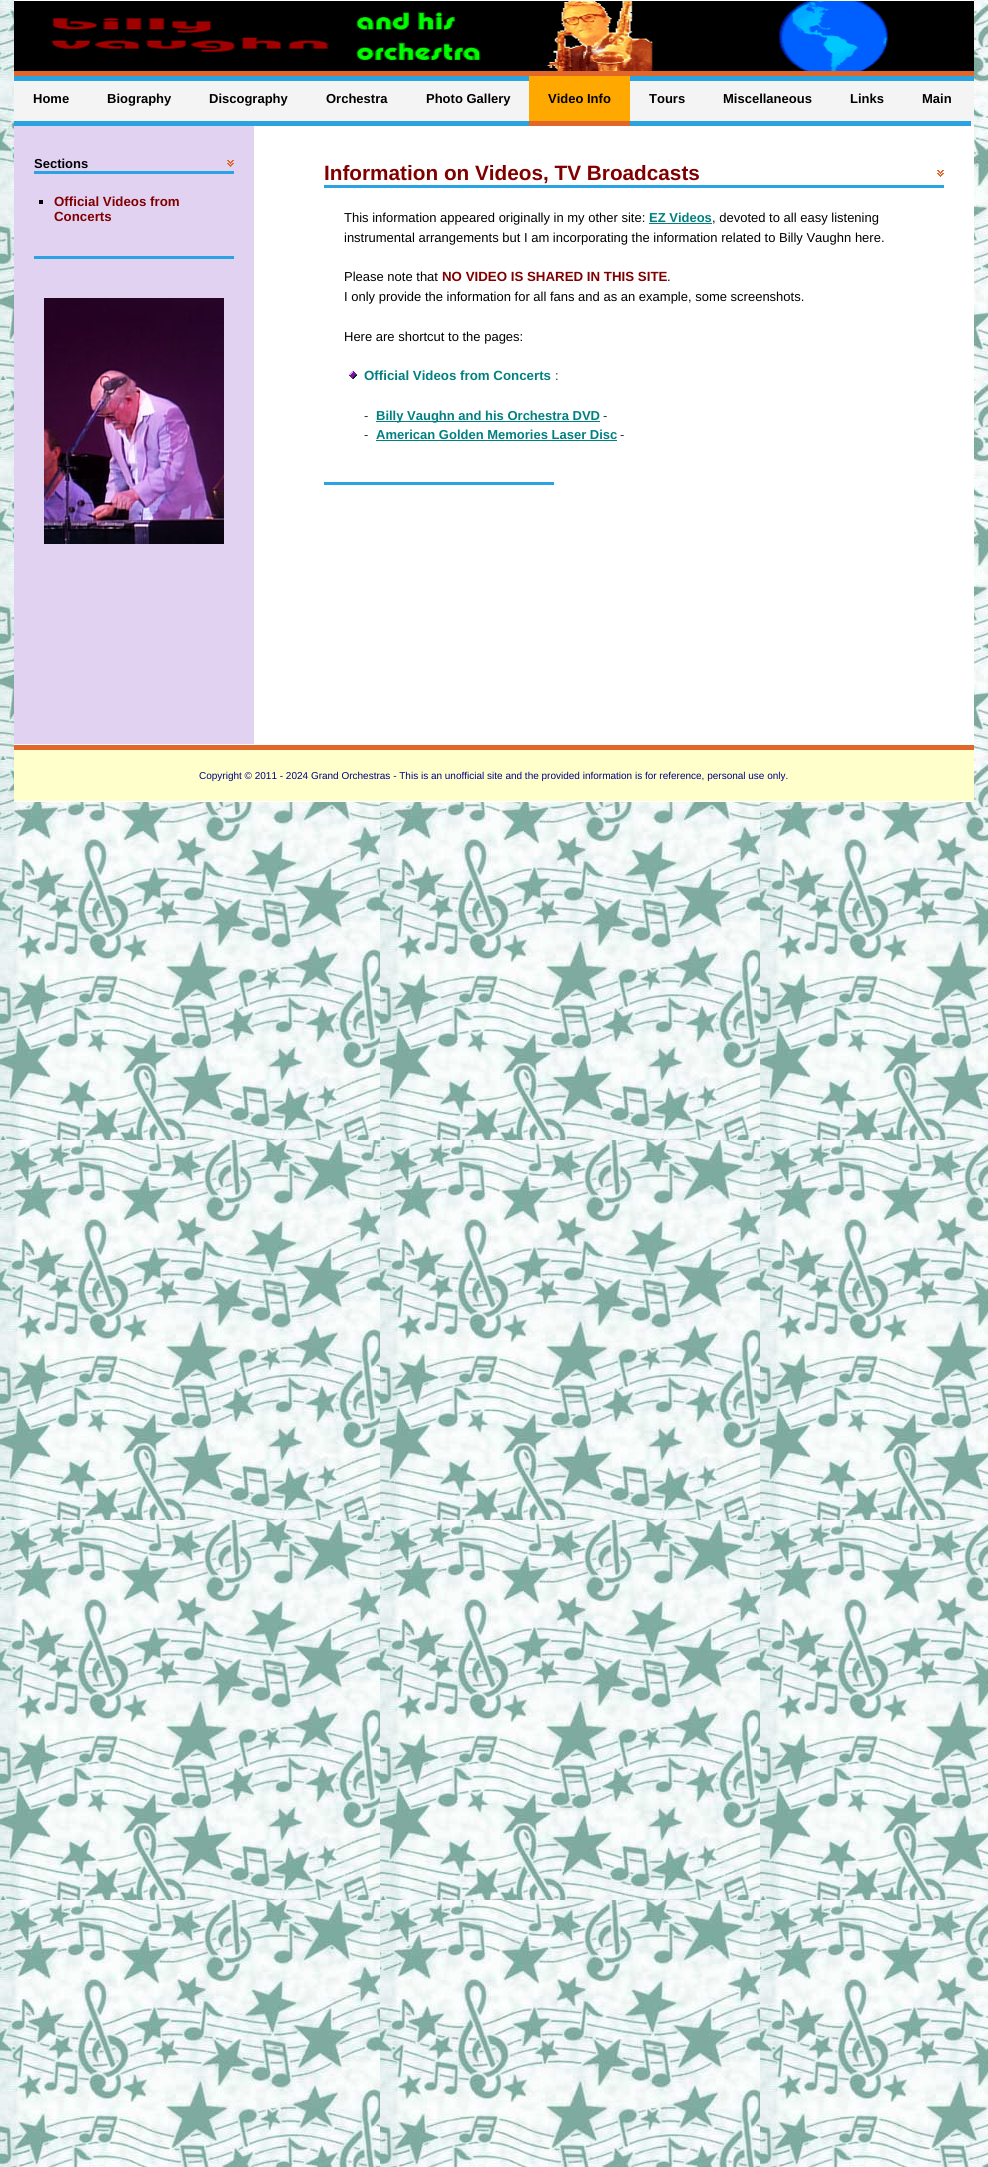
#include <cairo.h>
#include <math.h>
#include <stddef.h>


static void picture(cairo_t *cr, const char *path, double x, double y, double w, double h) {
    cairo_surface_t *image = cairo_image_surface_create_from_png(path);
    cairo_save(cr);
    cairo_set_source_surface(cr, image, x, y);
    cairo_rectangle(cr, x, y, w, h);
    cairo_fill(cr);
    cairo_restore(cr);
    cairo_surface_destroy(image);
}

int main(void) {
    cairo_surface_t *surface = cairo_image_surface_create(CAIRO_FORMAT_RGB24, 988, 2167);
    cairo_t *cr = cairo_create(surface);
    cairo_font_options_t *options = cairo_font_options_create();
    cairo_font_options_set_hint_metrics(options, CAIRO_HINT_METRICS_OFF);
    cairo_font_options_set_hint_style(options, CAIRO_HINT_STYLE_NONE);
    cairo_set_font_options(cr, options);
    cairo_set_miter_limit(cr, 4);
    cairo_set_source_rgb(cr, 1, 1, 1);
    cairo_paint(cr);
    picture(cr, "img1.png", 0, 0, 988, 2167);
    cairo_set_source_rgb(cr, 1, 1, 1);
    cairo_rectangle(cr, 14, 0, 960, 802);
    cairo_fill(cr);
    cairo_set_source_rgb(cr, 0, 0, 0);
    cairo_rectangle(cr, 14, 1, 960, 70);
    cairo_fill(cr);
    cairo_set_source_rgb(cr, 0.882, 0.4, 0.161);
    cairo_rectangle(cr, 14, 71, 960, 5);
    cairo_fill(cr);
    picture(cr, "img2.png", 51, 1, 837, 70);
    cairo_set_source_rgb(cr, 0.957, 0.957, 0.957);
    cairo_rectangle(cr, 14, 81, 960, 45);
    cairo_fill(cr);
    cairo_set_source_rgb(cr, 0.161, 0.643, 0.882);
    cairo_rectangle(cr, 14, 76, 960, 5);
    cairo_fill(cr);
    cairo_rectangle(cr, 14, 121, 515, 5);
    cairo_fill(cr);
    cairo_select_font_face(cr, "Liberation Sans", CAIRO_FONT_SLANT_NORMAL, CAIRO_FONT_WEIGHT_BOLD);
    cairo_set_font_size(cr, 13);
    cairo_set_source_rgb(cr, 0, 0, 0);
    cairo_move_to(cr, 33, 103);
    cairo_show_text(cr, "Home");
    cairo_move_to(cr, 107, 103);
    cairo_show_text(cr, "Biography");
    cairo_move_to(cr, 209, 103);
    cairo_show_text(cr, "Discography");
    cairo_move_to(cr, 326, 103);
    cairo_show_text(cr, "Orchestra");
    cairo_move_to(cr, 426, 103);
    cairo_show_text(cr, "Photo Gallery");
    cairo_set_source_rgb(cr, 1, 0.659, 0);
    cairo_rectangle(cr, 529, 76, 101, 45);
    cairo_fill(cr);
    cairo_set_source_rgb(cr, 0.882, 0.4, 0.161);
    cairo_rectangle(cr, 529, 121, 101, 5);
    cairo_fill(cr);
    cairo_set_source_rgb(cr, 0, 0, 0);
    cairo_move_to(cr, 548, 103);
    cairo_show_text(cr, "Video Info");
    cairo_set_source_rgb(cr, 0.161, 0.643, 0.882);
    cairo_rectangle(cr, 630, 121, 341, 5);
    cairo_fill(cr);
    cairo_set_source_rgb(cr, 0, 0, 0);
    cairo_move_to(cr, 649, 103);
    cairo_show_text(cr, "Tours");
    cairo_move_to(cr, 723, 103);
    cairo_show_text(cr, "Miscellaneous");
    cairo_move_to(cr, 850, 103);
    cairo_show_text(cr, "Links");
    cairo_move_to(cr, 922, 103);
    cairo_show_text(cr, "Main");
    cairo_set_source_rgb(cr, 0.886, 0.824, 0.949);
    cairo_rectangle(cr, 14, 126, 240, 618);
    cairo_fill(cr);
    picture(cr, "img3.png", 227, 160, 7, 7);
    cairo_set_source_rgb(cr, 0.161, 0.639, 0.882);
    cairo_rectangle(cr, 34, 171, 200, 3);
    cairo_fill(cr);
    cairo_set_source_rgb(cr, 0, 0, 0);
    cairo_move_to(cr, 34, 168);
    cairo_show_text(cr, "Sections");
    cairo_set_source_rgb(cr, 0.161, 0.639, 0.882);
    cairo_rectangle(cr, 34, 256, 200, 3);
    cairo_fill(cr);
    cairo_set_source_rgb(cr, 0, 0, 0);
    cairo_rectangle(cr, 39, 200, 4, 4);
    cairo_fill(cr);
    cairo_set_font_size(cr, 13.3);
    cairo_set_source_rgb(cr, 0.502, 0, 0);
    cairo_move_to(cr, 54, 206);
    cairo_show_text(cr, "Official Videos from");
    cairo_move_to(cr, 54, 221);
    cairo_show_text(cr, "Concerts");
    picture(cr, "img4.png", 44, 298, 180, 246);
    picture(cr, "img5.png", 937, 170, 7, 7);
    cairo_set_source_rgb(cr, 0.161, 0.639, 0.882);
    cairo_rectangle(cr, 324, 185, 620, 3);
    cairo_fill(cr);
    cairo_set_font_size(cr, 20.75);
    cairo_set_source_rgb(cr, 0.502, 0, 0);
    cairo_move_to(cr, 324, 180);
    cairo_show_text(cr, "Information on Videos, TV Broadcasts");
    cairo_set_source_rgb(cr, 0.161, 0.639, 0.882);
    cairo_rectangle(cr, 324, 482, 230, 3);
    cairo_fill(cr);
    cairo_select_font_face(cr, "Liberation Sans", CAIRO_FONT_SLANT_NORMAL, CAIRO_FONT_WEIGHT_NORMAL);
    cairo_set_font_size(cr, 13);
    cairo_set_source_rgb(cr, 0, 0, 0);
    cairo_move_to(cr, 344, 222);
    cairo_show_text(cr, "This information appeared originally in my other site:");
    cairo_select_font_face(cr, "Liberation Sans", CAIRO_FONT_SLANT_NORMAL, CAIRO_FONT_WEIGHT_BOLD);
    cairo_set_source_rgb(cr, 0, 0.502, 0.502);
    cairo_move_to(cr, 649, 222);
    cairo_show_text(cr, "EZ Videos");
    cairo_rectangle(cr, 649, 223, 63, 1);
    cairo_fill(cr);
    cairo_select_font_face(cr, "Liberation Sans", CAIRO_FONT_SLANT_NORMAL, CAIRO_FONT_WEIGHT_NORMAL);
    cairo_set_source_rgb(cr, 0, 0, 0);
    cairo_move_to(cr, 712, 222);
    cairo_show_text(cr, ", devoted to all easy listening");
    cairo_move_to(cr, 344, 242);
    cairo_show_text(cr, "instrumental arrangements but I am incorporating the information related to Billy Vaughn here.");
    cairo_move_to(cr, 344, 281);
    cairo_show_text(cr, "Please note that");
    cairo_select_font_face(cr, "Liberation Sans", CAIRO_FONT_SLANT_NORMAL, CAIRO_FONT_WEIGHT_BOLD);
    cairo_set_font_size(cr, 13.3);
    cairo_set_source_rgb(cr, 0.502, 0, 0);
    cairo_move_to(cr, 442, 281);
    cairo_show_text(cr, "NO VIDEO IS SHARED IN THIS SITE");
    cairo_select_font_face(cr, "Liberation Sans", CAIRO_FONT_SLANT_NORMAL, CAIRO_FONT_WEIGHT_NORMAL);
    cairo_set_font_size(cr, 13);
    cairo_set_source_rgb(cr, 0, 0, 0);
    cairo_move_to(cr, 667, 281);
    cairo_show_text(cr, ".");
    cairo_move_to(cr, 344, 301);
    cairo_show_text(cr, "I only provide the information for all fans and as an example, some screenshots.");
    cairo_move_to(cr, 344, 341);
    cairo_show_text(cr, "Here are shortcut to the pages:");
    picture(cr, "img6.png", 349, 371, 8, 8);
    cairo_select_font_face(cr, "Liberation Sans", CAIRO_FONT_SLANT_NORMAL, CAIRO_FONT_WEIGHT_BOLD);
    cairo_set_font_size(cr, 13.3);
    cairo_set_source_rgb(cr, 0, 0.502, 0.502);
    cairo_move_to(cr, 364, 380);
    cairo_show_text(cr, "Official Videos from Concerts");
    cairo_select_font_face(cr, "Liberation Sans", CAIRO_FONT_SLANT_NORMAL, CAIRO_FONT_WEIGHT_NORMAL);
    cairo_set_font_size(cr, 13);
    cairo_set_source_rgb(cr, 0.2, 0.2, 0.2);
    cairo_move_to(cr, 555, 380);
    cairo_show_text(cr, ":");
    cairo_move_to(cr, 364, 420);
    cairo_show_text(cr, "-");
    cairo_set_source_rgb(cr, 0, 0.502, 0.502);
    cairo_rectangle(cr, 376, 421, 224, 1);
    cairo_fill(cr);
    cairo_select_font_face(cr, "Liberation Sans", CAIRO_FONT_SLANT_NORMAL, CAIRO_FONT_WEIGHT_BOLD);
    cairo_move_to(cr, 376, 420);
    cairo_show_text(cr, "Billy Vaughn and his Orchestra DVD");
    cairo_select_font_face(cr, "Liberation Sans", CAIRO_FONT_SLANT_NORMAL, CAIRO_FONT_WEIGHT_NORMAL);
    cairo_set_source_rgb(cr, 0.2, 0.2, 0.2);
    cairo_move_to(cr, 603, 420);
    cairo_show_text(cr, "-");
    cairo_move_to(cr, 364, 439);
    cairo_show_text(cr, "-");
    cairo_select_font_face(cr, "Liberation Sans", CAIRO_FONT_SLANT_NORMAL, CAIRO_FONT_WEIGHT_BOLD);
    cairo_set_source_rgb(cr, 0, 0.502, 0.502);
    cairo_move_to(cr, 376, 439);
    cairo_show_text(cr, "American Golden Memories Laser Disc");
    cairo_rectangle(cr, 376, 440, 241, 1);
    cairo_fill(cr);
    cairo_select_font_face(cr, "Liberation Sans", CAIRO_FONT_SLANT_NORMAL, CAIRO_FONT_WEIGHT_NORMAL);
    cairo_set_source_rgb(cr, 0.2, 0.2, 0.2);
    cairo_move_to(cr, 620, 439);
    cairo_show_text(cr, "-");
    cairo_set_source_rgb(cr, 1, 1, 0.8);
    cairo_rectangle(cr, 14, 750, 960, 51);
    cairo_fill(cr);
    cairo_set_source_rgb(cr, 0.882, 0.4, 0.161);
    cairo_rectangle(cr, 14, 745, 960, 5);
    cairo_fill(cr);
    cairo_set_font_size(cr, 10);
    cairo_set_source_rgb(cr, 0, 0, 0.502);
    cairo_move_to(cr, 199, 779);
    cairo_show_text(cr, "Copyright © 2011 - 2024 Grand Orchestras - This is an unofficial site and the provided information is for reference, personal use only.");
    cairo_surface_write_to_png(surface, "page.png");
    cairo_font_options_destroy(options);
    cairo_destroy(cr);
    cairo_surface_destroy(surface);
    return 0;
}
